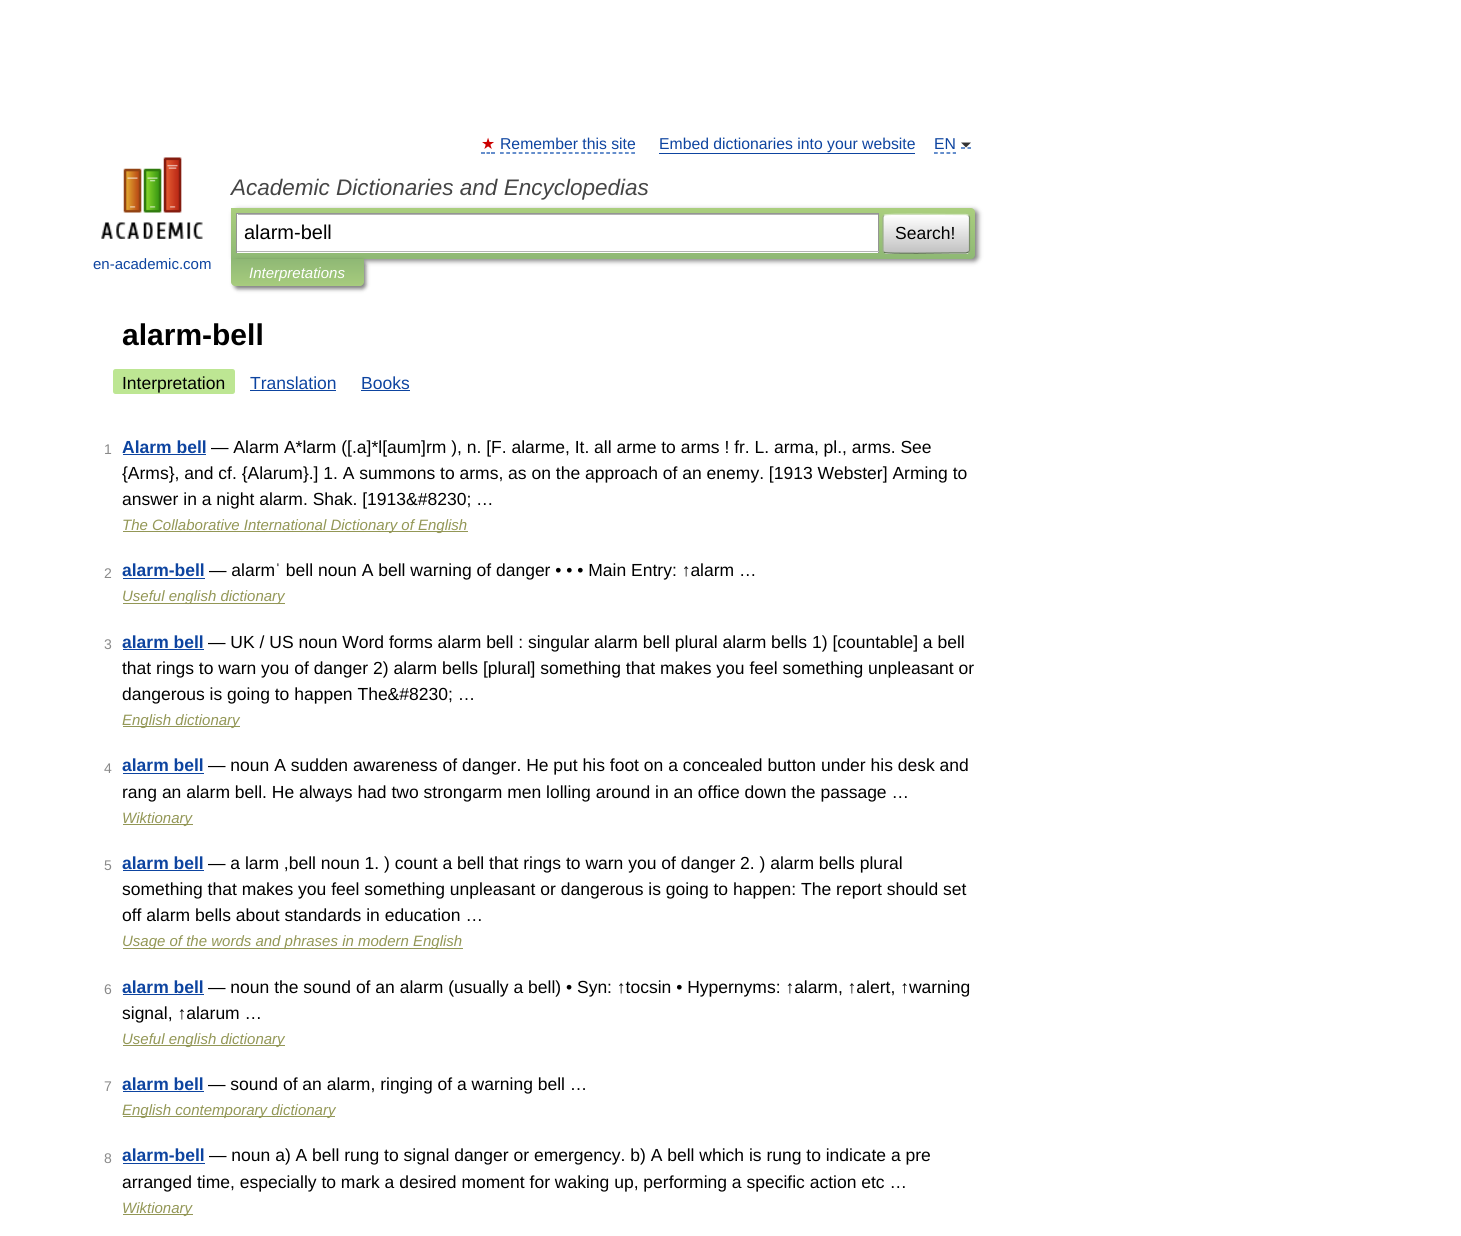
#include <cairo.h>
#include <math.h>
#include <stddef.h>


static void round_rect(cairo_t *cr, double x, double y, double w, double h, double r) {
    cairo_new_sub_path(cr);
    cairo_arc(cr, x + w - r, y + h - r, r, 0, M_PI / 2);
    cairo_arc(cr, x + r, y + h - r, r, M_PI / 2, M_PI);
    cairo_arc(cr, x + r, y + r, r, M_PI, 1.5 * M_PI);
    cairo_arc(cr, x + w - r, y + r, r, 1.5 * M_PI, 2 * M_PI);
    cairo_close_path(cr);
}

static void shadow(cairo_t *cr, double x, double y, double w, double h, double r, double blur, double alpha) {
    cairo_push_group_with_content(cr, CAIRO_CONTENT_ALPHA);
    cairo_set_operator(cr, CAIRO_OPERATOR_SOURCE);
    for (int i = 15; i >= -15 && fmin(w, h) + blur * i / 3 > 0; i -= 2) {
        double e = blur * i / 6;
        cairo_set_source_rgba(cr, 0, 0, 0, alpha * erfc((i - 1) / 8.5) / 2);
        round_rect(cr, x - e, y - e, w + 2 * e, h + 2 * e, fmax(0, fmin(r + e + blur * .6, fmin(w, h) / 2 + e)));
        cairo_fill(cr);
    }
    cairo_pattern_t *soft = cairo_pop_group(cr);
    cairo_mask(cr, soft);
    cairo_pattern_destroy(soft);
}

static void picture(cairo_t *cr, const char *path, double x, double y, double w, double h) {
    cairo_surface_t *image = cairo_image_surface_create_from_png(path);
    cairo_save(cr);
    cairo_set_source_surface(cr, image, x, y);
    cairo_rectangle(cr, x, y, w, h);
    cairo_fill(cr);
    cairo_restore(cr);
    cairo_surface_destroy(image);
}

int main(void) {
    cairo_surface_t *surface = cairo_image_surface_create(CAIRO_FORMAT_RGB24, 1461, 1236);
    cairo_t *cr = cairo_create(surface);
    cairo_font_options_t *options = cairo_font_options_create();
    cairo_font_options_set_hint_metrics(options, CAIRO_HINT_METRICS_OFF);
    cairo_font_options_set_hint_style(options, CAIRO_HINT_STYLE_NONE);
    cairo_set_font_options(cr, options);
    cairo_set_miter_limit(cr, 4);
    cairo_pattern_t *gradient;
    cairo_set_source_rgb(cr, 1, 1, 1);
    cairo_paint(cr);
    cairo_select_font_face(cr, "DejaVu Sans", CAIRO_FONT_SLANT_NORMAL, CAIRO_FONT_WEIGHT_NORMAL);
    cairo_set_font_size(cr, 15.75);
    cairo_set_source_rgb(cr, 0.8, 0, 0);
    cairo_move_to(cr, 481, 149);
    cairo_show_text(cr, "★");
    cairo_new_path(cr);
    cairo_move_to(cr, 481, 153);
    cairo_line_to(cr, 485, 153);
    cairo_move_to(cr, 486.5, 153);
    cairo_line_to(cr, 490, 153);
    cairo_move_to(cr, 491, 153);
    cairo_line_to(cr, 495, 153);
    cairo_set_source_rgb(cr, 0, 0.267, 0.667);
    cairo_set_line_width(cr, 1.2);
    cairo_stroke(cr);
    cairo_select_font_face(cr, "Liberation Sans", CAIRO_FONT_SLANT_NORMAL, CAIRO_FONT_WEIGHT_NORMAL);
    cairo_set_source_rgb(cr, 0.051, 0.267, 0.627);
    cairo_move_to(cr, 500, 149);
    cairo_show_text(cr, "Remember this site");
    cairo_new_path(cr);
    cairo_move_to(cr, 500, 153);
    cairo_line_to(cr, 635, 153);
    cairo_set_source_rgb(cr, 0, 0.267, 0.667);
    cairo_set_dash(cr, (double[]){3.75, 2.5}, 2, 0);
    cairo_stroke(cr);
    cairo_set_source_rgb(cr, 0.051, 0.267, 0.627);
    cairo_move_to(cr, 659, 149);
    cairo_show_text(cr, "Embed dictionaries into your website");
    cairo_rectangle(cr, 659, 153, 256, 1);
    cairo_fill(cr);
    cairo_new_path(cr);
    cairo_move_to(cr, 934, 153);
    cairo_line_to(cr, 956, 153);
    cairo_set_source_rgb(cr, 0, 0.267, 0.667);
    cairo_stroke(cr);
    cairo_new_path(cr);
    cairo_move_to(cr, 961, 148);
    cairo_line_to(cr, 965, 148);
    cairo_move_to(cr, 967.5, 148);
    cairo_line_to(cr, 971, 148);
    cairo_set_dash(cr, NULL, 0, 0);
    cairo_stroke(cr);
    cairo_set_source_rgb(cr, 0.051, 0.267, 0.627);
    cairo_move_to(cr, 934, 149);
    cairo_show_text(cr, "EN");
    cairo_set_source_rgb(cr, 0.2, 0.2, 0.2);
    cairo_new_path(cr);
    cairo_move_to(cr, 961, 142.5);
    cairo_line_to(cr, 971, 142.5);
    cairo_line_to(cr, 966, 147.5);
    cairo_close_path(cr);
    cairo_fill(cr);
    cairo_select_font_face(cr, "Liberation Sans", CAIRO_FONT_SLANT_ITALIC, CAIRO_FONT_WEIGHT_NORMAL);
    cairo_set_font_size(cr, 22.5);
    cairo_set_source_rgb(cr, 0.271, 0.271, 0.271);
    cairo_move_to(cr, 231, 195);
    cairo_show_text(cr, "Academic Dictionaries and Encyclopedias");
    cairo_set_source_rgb(cr, 0, 0, 0);
    shadow(cr, 234, 210, 744, 51, 4, 2.5, 0.5);
    gradient = cairo_pattern_create_linear(603, 207, 603, 259);
    cairo_pattern_add_color_stop_rgba(gradient, 0, 0.671, 0.812, 0.494, 1);
    cairo_pattern_add_color_stop_rgba(gradient, 1, 0.557, 0.722, 0.455, 1);
    cairo_set_source(cr, gradient);
    cairo_pattern_destroy(gradient);
    cairo_new_path(cr);
    cairo_move_to(cr, 231, 208);
    cairo_line_to(cr, 971, 208);
    cairo_curve_to(cr, 973, 208, 975, 210, 975, 212);
    cairo_line_to(cr, 975, 255);
    cairo_curve_to(cr, 975, 257, 973, 259, 971, 259);
    cairo_line_to(cr, 231, 259);
    cairo_close_path(cr);
    cairo_fill(cr);
    cairo_set_source_rgb(cr, 1, 1, 1);
    cairo_rectangle(cr, 237, 214, 641, 39);
    cairo_fill(cr);
    cairo_set_source_rgb(cr, 0.702, 0.702, 0.702);
    cairo_rectangle(cr, 238, 214, 640, 1);
    cairo_fill(cr);
    cairo_set_source_rgb(cr, 0.58, 0.58, 0.58);
    cairo_rectangle(cr, 236, 213, 643, 1);
    cairo_fill(cr);
    cairo_rectangle(cr, 878, 213, 1, 40);
    cairo_fill(cr);
    cairo_set_source_rgb(cr, 0.706, 0.706, 0.706);
    cairo_rectangle(cr, 236, 251, 643, 1);
    cairo_fill(cr);
    cairo_set_source_rgb(cr, 0.58, 0.58, 0.58);
    cairo_rectangle(cr, 236, 213, 1, 40);
    cairo_fill(cr);
    cairo_select_font_face(cr, "Liberation Sans", CAIRO_FONT_SLANT_NORMAL, CAIRO_FONT_WEIGHT_NORMAL);
    cairo_set_font_size(cr, 20);
    cairo_set_source_rgb(cr, 0, 0, 0);
    cairo_move_to(cr, 244, 239);
    cairo_show_text(cr, "alarm-bell");
    cairo_save(cr);
    round_rect(cr, 883, 214, 87, 40, 4);
    cairo_clip(cr);
    gradient = cairo_pattern_create_linear(926, 178, 926, 215);
    cairo_pattern_add_color_stop_rgba(gradient, 0, 1, 1, 1, 1);
    cairo_pattern_add_color_stop_rgba(gradient, 1, 0.757, 0.757, 0.757, 1);
    cairo_set_source(cr, gradient);
    cairo_pattern_destroy(gradient);
    cairo_rectangle(cr, 883, 214, 87, 1);
    cairo_fill(cr);
    gradient = cairo_pattern_create_linear(926, 215, 926, 253);
    cairo_pattern_add_color_stop_rgba(gradient, 0, 1, 1, 1, 1);
    cairo_pattern_add_color_stop_rgba(gradient, 1, 0.757, 0.757, 0.757, 1);
    cairo_set_source(cr, gradient);
    cairo_pattern_destroy(gradient);
    cairo_rectangle(cr, 883, 215, 87, 38);
    cairo_fill(cr);
    gradient = cairo_pattern_create_linear(926, 253, 926, 290);
    cairo_pattern_add_color_stop_rgba(gradient, 0, 1, 1, 1, 1);
    cairo_pattern_add_color_stop_rgba(gradient, 1, 0.757, 0.757, 0.757, 1);
    cairo_set_source(cr, gradient);
    cairo_pattern_destroy(gradient);
    cairo_rectangle(cr, 883, 253, 87, 1);
    cairo_fill(cr);
    cairo_restore(cr);
    cairo_new_path(cr);
    cairo_move_to(cr, 884, 215.5);
    cairo_line_to(cr, 884.5, 215);
    cairo_curve_to(cr, 886.5, 213.5, 945.5, 214.5, 953, 214.5);
    cairo_line_to(cr, 966, 214.5);
    cairo_line_to(cr, 968.5, 215.5);
    cairo_set_source_rgb(cr, 0.82, 0.894, 0.737);
    cairo_stroke(cr);
    cairo_new_path(cr);
    cairo_move_to(cr, 968.5, 215.5);
    cairo_curve_to(cr, 969, 216, 969.5, 216.5, 969.5, 217.5);
    cairo_line_to(cr, 969.5, 250);
    cairo_curve_to(cr, 969.5, 251, 969, 251.5, 968.5, 252);
    cairo_set_source_rgb(cr, 0.478, 0.557, 0.412);
    cairo_stroke(cr);
    cairo_new_path(cr);
    cairo_move_to(cr, 968.5, 252);
    cairo_line_to(cr, 966, 253);
    cairo_line_to(cr, 953, 253);
    cairo_curve_to(cr, 945.5, 253, 886.5, 254, 884.5, 252.5);
    cairo_line_to(cr, 884, 252);
    cairo_set_source_rgb(cr, 0.365, 0.447, 0.314);
    cairo_stroke(cr);
    cairo_new_path(cr);
    cairo_move_to(cr, 884, 252);
    cairo_curve_to(cr, 883.5, 251.5, 883, 251, 883, 250);
    cairo_line_to(cr, 883, 217.5);
    cairo_curve_to(cr, 883, 216.5, 883.5, 216, 884, 215.5);
    cairo_set_source_rgb(cr, 0.604, 0.682, 0.537);
    cairo_stroke(cr);
    cairo_set_font_size(cr, 17.5);
    cairo_set_source_rgb(cr, 0, 0, 0);
    cairo_move_to(cr, 895, 239);
    cairo_show_text(cr, "Search!");
    picture(cr, "img1.png", 101, 157, 102, 82);
    cairo_set_font_size(cr, 15);
    cairo_set_source_rgb(cr, 0.051, 0.267, 0.627);
    cairo_move_to(cr, 93, 269);
    cairo_show_text(cr, "en-academic.com");
    cairo_set_source_rgb(cr, 0, 0, 0);
    shadow(cr, 234, 261, 132, 28, 4, 2, 0.5);
    gradient = cairo_pattern_create_linear(298, 259, 298, 286);
    cairo_pattern_add_color_stop_rgba(gradient, 0, 0.561, 0.722, 0.459, 1);
    cairo_pattern_add_color_stop_rgba(gradient, 1, 0.655, 0.8, 0.49, 1);
    cairo_set_source(cr, gradient);
    cairo_pattern_destroy(gradient);
    cairo_new_path(cr);
    cairo_move_to(cr, 231, 259);
    cairo_line_to(cr, 364, 259);
    cairo_line_to(cr, 364, 282);
    cairo_curve_to(cr, 364, 284, 362, 286, 360, 286);
    cairo_line_to(cr, 235, 286);
    cairo_curve_to(cr, 233, 286, 231, 284, 231, 282);
    cairo_close_path(cr);
    cairo_fill(cr);
    cairo_select_font_face(cr, "Liberation Sans", CAIRO_FONT_SLANT_ITALIC, CAIRO_FONT_WEIGHT_NORMAL);
    cairo_set_source_rgb(cr, 1, 1, 1);
    cairo_move_to(cr, 249, 278);
    cairo_show_text(cr, "Interpretations");
    cairo_select_font_face(cr, "Liberation Sans", CAIRO_FONT_SLANT_NORMAL, CAIRO_FONT_WEIGHT_BOLD);
    cairo_set_font_size(cr, 30);
    cairo_set_source_rgb(cr, 0, 0, 0);
    cairo_move_to(cr, 122, 345);
    cairo_show_text(cr, "alarm-bell");
    cairo_set_source_rgb(cr, 0.741, 0.902, 0.576);
    round_rect(cr, 113, 369, 122, 25, 2.5);
    cairo_fill(cr);
    cairo_select_font_face(cr, "Liberation Sans", CAIRO_FONT_SLANT_NORMAL, CAIRO_FONT_WEIGHT_NORMAL);
    cairo_set_font_size(cr, 17.5);
    cairo_set_source_rgb(cr, 0, 0, 0);
    cairo_move_to(cr, 122, 389);
    cairo_show_text(cr, "Interpretation");
    cairo_set_source_rgb(cr, 0.051, 0.267, 0.627);
    cairo_move_to(cr, 250, 389);
    cairo_show_text(cr, "Translation");
    cairo_rectangle(cr, 250, 390, 86, 1);
    cairo_fill(cr);
    cairo_move_to(cr, 361, 389);
    cairo_show_text(cr, "Books");
    cairo_rectangle(cr, 361, 390, 49, 1);
    cairo_fill(cr);
    cairo_set_font_size(cr, 14);
    cairo_set_source_rgb(cr, 0.537, 0.537, 0.537);
    cairo_move_to(cr, 104, 454);
    cairo_show_text(cr, "1");
    cairo_select_font_face(cr, "Liberation Sans", CAIRO_FONT_SLANT_NORMAL, CAIRO_FONT_WEIGHT_BOLD);
    cairo_set_font_size(cr, 17.5);
    cairo_set_source_rgb(cr, 0.051, 0.267, 0.627);
    cairo_move_to(cr, 122, 453);
    cairo_show_text(cr, "Alarm bell");
    cairo_rectangle(cr, 123, 454, 83, 1);
    cairo_fill(cr);
    cairo_select_font_face(cr, "Liberation Sans", CAIRO_FONT_SLANT_NORMAL, CAIRO_FONT_WEIGHT_NORMAL);
    cairo_set_source_rgb(cr, 0, 0, 0);
    cairo_move_to(cr, 211, 453);
    cairo_show_text(cr, "— Alarm A*larm ([.a]*l[aum]rm ), n. [F. alarme, It. all arme to arms ! fr. L. arma, pl., arms. See");
    cairo_move_to(cr, 122, 479);
    cairo_show_text(cr, "{Arms}, and cf. {Alarum}.] 1. A summons to arms, as on the approach of an enemy. [1913 Webster] Arming to");
    cairo_move_to(cr, 122, 505);
    cairo_show_text(cr, "answer in a night alarm. Shak. [1913&#8230; …");
    cairo_set_source_rgb(cr, 0.576, 0.592, 0.337);
    cairo_rectangle(cr, 123, 531, 345, 1);
    cairo_fill(cr);
    cairo_select_font_face(cr, "Liberation Sans", CAIRO_FONT_SLANT_ITALIC, CAIRO_FONT_WEIGHT_NORMAL);
    cairo_set_font_size(cr, 15);
    cairo_move_to(cr, 122, 530);
    cairo_show_text(cr, "The Collaborative International Dictionary of English");
    cairo_select_font_face(cr, "Liberation Sans", CAIRO_FONT_SLANT_NORMAL, CAIRO_FONT_WEIGHT_NORMAL);
    cairo_set_font_size(cr, 14);
    cairo_set_source_rgb(cr, 0.537, 0.537, 0.537);
    cairo_move_to(cr, 104, 578);
    cairo_show_text(cr, "2");
    cairo_select_font_face(cr, "Liberation Sans", CAIRO_FONT_SLANT_NORMAL, CAIRO_FONT_WEIGHT_BOLD);
    cairo_set_font_size(cr, 17.5);
    cairo_set_source_rgb(cr, 0.051, 0.267, 0.627);
    cairo_move_to(cr, 122, 576);
    cairo_show_text(cr, "alarm-bell");
    cairo_rectangle(cr, 123, 578, 82, 1);
    cairo_fill(cr);
    cairo_select_font_face(cr, "Liberation Sans", CAIRO_FONT_SLANT_NORMAL, CAIRO_FONT_WEIGHT_NORMAL);
    cairo_set_source_rgb(cr, 0, 0, 0);
    cairo_move_to(cr, 209, 576);
    cairo_show_text(cr, "— alarmˈ bell noun A bell warning of danger • • • Main Entry: ↑alarm …");
    cairo_set_source_rgb(cr, 0.576, 0.592, 0.337);
    cairo_rectangle(cr, 123, 603, 162, 1);
    cairo_fill(cr);
    cairo_select_font_face(cr, "Liberation Sans", CAIRO_FONT_SLANT_ITALIC, CAIRO_FONT_WEIGHT_NORMAL);
    cairo_set_font_size(cr, 15);
    cairo_move_to(cr, 122, 601);
    cairo_show_text(cr, "Useful english dictionary");
    cairo_select_font_face(cr, "Liberation Sans", CAIRO_FONT_SLANT_NORMAL, CAIRO_FONT_WEIGHT_NORMAL);
    cairo_set_font_size(cr, 14);
    cairo_set_source_rgb(cr, 0.537, 0.537, 0.537);
    cairo_move_to(cr, 104, 649);
    cairo_show_text(cr, "3");
    cairo_select_font_face(cr, "Liberation Sans", CAIRO_FONT_SLANT_NORMAL, CAIRO_FONT_WEIGHT_BOLD);
    cairo_set_font_size(cr, 17.5);
    cairo_set_source_rgb(cr, 0.051, 0.267, 0.627);
    cairo_move_to(cr, 122, 648);
    cairo_show_text(cr, "alarm bell");
    cairo_rectangle(cr, 123, 649, 81, 1);
    cairo_fill(cr);
    cairo_select_font_face(cr, "Liberation Sans", CAIRO_FONT_SLANT_NORMAL, CAIRO_FONT_WEIGHT_NORMAL);
    cairo_set_source_rgb(cr, 0, 0, 0);
    cairo_move_to(cr, 208, 648);
    cairo_show_text(cr, "— UK / US noun Word forms alarm bell : singular alarm bell plural alarm bells 1) [countable] a bell");
    cairo_move_to(cr, 122, 674);
    cairo_show_text(cr, "that rings to warn you of danger 2) alarm bells [plural] something that makes you feel something unpleasant or");
    cairo_move_to(cr, 122, 700);
    cairo_show_text(cr, "dangerous is going to happen The&#8230; …");
    cairo_set_source_rgb(cr, 0.576, 0.592, 0.337);
    cairo_rectangle(cr, 123, 726, 117, 1);
    cairo_fill(cr);
    cairo_select_font_face(cr, "Liberation Sans", CAIRO_FONT_SLANT_ITALIC, CAIRO_FONT_WEIGHT_NORMAL);
    cairo_set_font_size(cr, 15);
    cairo_move_to(cr, 122, 725);
    cairo_show_text(cr, "English dictionary");
    cairo_select_font_face(cr, "Liberation Sans", CAIRO_FONT_SLANT_NORMAL, CAIRO_FONT_WEIGHT_NORMAL);
    cairo_set_font_size(cr, 14);
    cairo_set_source_rgb(cr, 0.537, 0.537, 0.537);
    cairo_move_to(cr, 104, 773);
    cairo_show_text(cr, "4");
    cairo_select_font_face(cr, "Liberation Sans", CAIRO_FONT_SLANT_NORMAL, CAIRO_FONT_WEIGHT_BOLD);
    cairo_set_font_size(cr, 17.5);
    cairo_set_source_rgb(cr, 0.051, 0.267, 0.627);
    cairo_move_to(cr, 122, 771);
    cairo_show_text(cr, "alarm bell");
    cairo_rectangle(cr, 123, 773, 81, 1);
    cairo_fill(cr);
    cairo_select_font_face(cr, "Liberation Sans", CAIRO_FONT_SLANT_NORMAL, CAIRO_FONT_WEIGHT_NORMAL);
    cairo_set_source_rgb(cr, 0, 0, 0);
    cairo_move_to(cr, 208, 771);
    cairo_show_text(cr, "— noun A sudden awareness of danger. He put his foot on a concealed button under his desk and");
    cairo_move_to(cr, 122, 798);
    cairo_show_text(cr, "rang an alarm bell. He always had two strongarm men lolling around in an office down the passage …");
    cairo_set_source_rgb(cr, 0.576, 0.592, 0.337);
    cairo_rectangle(cr, 123, 824, 70, 1);
    cairo_fill(cr);
    cairo_select_font_face(cr, "Liberation Sans", CAIRO_FONT_SLANT_ITALIC, CAIRO_FONT_WEIGHT_NORMAL);
    cairo_set_font_size(cr, 15);
    cairo_move_to(cr, 122, 823);
    cairo_show_text(cr, "Wiktionary");
    cairo_select_font_face(cr, "Liberation Sans", CAIRO_FONT_SLANT_NORMAL, CAIRO_FONT_WEIGHT_NORMAL);
    cairo_set_font_size(cr, 14);
    cairo_set_source_rgb(cr, 0.537, 0.537, 0.537);
    cairo_move_to(cr, 104, 870);
    cairo_show_text(cr, "5");
    cairo_select_font_face(cr, "Liberation Sans", CAIRO_FONT_SLANT_NORMAL, CAIRO_FONT_WEIGHT_BOLD);
    cairo_set_font_size(cr, 17.5);
    cairo_set_source_rgb(cr, 0.051, 0.267, 0.627);
    cairo_move_to(cr, 122, 869);
    cairo_show_text(cr, "alarm bell");
    cairo_rectangle(cr, 123, 870, 81, 1);
    cairo_fill(cr);
    cairo_select_font_face(cr, "Liberation Sans", CAIRO_FONT_SLANT_NORMAL, CAIRO_FONT_WEIGHT_NORMAL);
    cairo_set_source_rgb(cr, 0, 0, 0);
    cairo_move_to(cr, 208, 869);
    cairo_show_text(cr, "— a larm ,bell noun 1. ) count a bell that rings to warn you of danger 2. ) alarm bells plural");
    cairo_move_to(cr, 122, 895);
    cairo_show_text(cr, "something that makes you feel something unpleasant or dangerous is going to happen: The report should set");
    cairo_move_to(cr, 122, 921);
    cairo_show_text(cr, "off alarm bells about standards in education …");
    cairo_set_source_rgb(cr, 0.576, 0.592, 0.337);
    cairo_rectangle(cr, 123, 948, 340, 1);
    cairo_fill(cr);
    cairo_select_font_face(cr, "Liberation Sans", CAIRO_FONT_SLANT_ITALIC, CAIRO_FONT_WEIGHT_NORMAL);
    cairo_set_font_size(cr, 15);
    cairo_move_to(cr, 122, 946);
    cairo_show_text(cr, "Usage of the words and phrases in modern English");
    cairo_select_font_face(cr, "Liberation Sans", CAIRO_FONT_SLANT_NORMAL, CAIRO_FONT_WEIGHT_NORMAL);
    cairo_set_font_size(cr, 14);
    cairo_set_source_rgb(cr, 0.537, 0.537, 0.537);
    cairo_move_to(cr, 104, 994);
    cairo_show_text(cr, "6");
    cairo_select_font_face(cr, "Liberation Sans", CAIRO_FONT_SLANT_NORMAL, CAIRO_FONT_WEIGHT_BOLD);
    cairo_set_font_size(cr, 17.5);
    cairo_set_source_rgb(cr, 0.051, 0.267, 0.627);
    cairo_move_to(cr, 122, 993);
    cairo_show_text(cr, "alarm bell");
    cairo_rectangle(cr, 123, 994, 81, 1);
    cairo_fill(cr);
    cairo_select_font_face(cr, "Liberation Sans", CAIRO_FONT_SLANT_NORMAL, CAIRO_FONT_WEIGHT_NORMAL);
    cairo_set_source_rgb(cr, 0, 0, 0);
    cairo_move_to(cr, 208, 993);
    cairo_show_text(cr, "— noun the sound of an alarm (usually a bell) • Syn: ↑tocsin • Hypernyms: ↑alarm, ↑alert, ↑warning");
    cairo_move_to(cr, 122, 1019);
    cairo_show_text(cr, "signal, ↑alarum …");
    cairo_set_source_rgb(cr, 0.576, 0.592, 0.337);
    cairo_rectangle(cr, 123, 1045, 162, 1);
    cairo_fill(cr);
    cairo_select_font_face(cr, "Liberation Sans", CAIRO_FONT_SLANT_ITALIC, CAIRO_FONT_WEIGHT_NORMAL);
    cairo_set_font_size(cr, 15);
    cairo_move_to(cr, 122, 1044);
    cairo_show_text(cr, "Useful english dictionary");
    cairo_select_font_face(cr, "Liberation Sans", CAIRO_FONT_SLANT_NORMAL, CAIRO_FONT_WEIGHT_NORMAL);
    cairo_set_font_size(cr, 14);
    cairo_set_source_rgb(cr, 0.537, 0.537, 0.537);
    cairo_move_to(cr, 104, 1091);
    cairo_show_text(cr, "7");
    cairo_select_font_face(cr, "Liberation Sans", CAIRO_FONT_SLANT_NORMAL, CAIRO_FONT_WEIGHT_BOLD);
    cairo_set_font_size(cr, 17.5);
    cairo_set_source_rgb(cr, 0.051, 0.267, 0.627);
    cairo_move_to(cr, 122, 1090);
    cairo_show_text(cr, "alarm bell");
    cairo_rectangle(cr, 123, 1091, 81, 1);
    cairo_fill(cr);
    cairo_select_font_face(cr, "Liberation Sans", CAIRO_FONT_SLANT_NORMAL, CAIRO_FONT_WEIGHT_NORMAL);
    cairo_set_source_rgb(cr, 0, 0, 0);
    cairo_move_to(cr, 208, 1090);
    cairo_show_text(cr, "— sound of an alarm, ringing of a warning bell …");
    cairo_set_source_rgb(cr, 0.576, 0.592, 0.337);
    cairo_rectangle(cr, 123, 1116, 212, 1);
    cairo_fill(cr);
    cairo_select_font_face(cr, "Liberation Sans", CAIRO_FONT_SLANT_ITALIC, CAIRO_FONT_WEIGHT_NORMAL);
    cairo_set_font_size(cr, 15);
    cairo_move_to(cr, 122, 1115);
    cairo_show_text(cr, "English contemporary dictionary");
    cairo_select_font_face(cr, "Liberation Sans", CAIRO_FONT_SLANT_NORMAL, CAIRO_FONT_WEIGHT_NORMAL);
    cairo_set_font_size(cr, 14);
    cairo_set_source_rgb(cr, 0.537, 0.537, 0.537);
    cairo_move_to(cr, 104, 1163);
    cairo_show_text(cr, "8");
    cairo_select_font_face(cr, "Liberation Sans", CAIRO_FONT_SLANT_NORMAL, CAIRO_FONT_WEIGHT_BOLD);
    cairo_set_font_size(cr, 17.5);
    cairo_set_source_rgb(cr, 0.051, 0.267, 0.627);
    cairo_move_to(cr, 122, 1161);
    cairo_show_text(cr, "alarm-bell");
    cairo_rectangle(cr, 123, 1163, 82, 1);
    cairo_fill(cr);
    cairo_select_font_face(cr, "Liberation Sans", CAIRO_FONT_SLANT_NORMAL, CAIRO_FONT_WEIGHT_NORMAL);
    cairo_set_source_rgb(cr, 0, 0, 0);
    cairo_move_to(cr, 209, 1161);
    cairo_show_text(cr, "— noun a) A bell rung to signal danger or emergency. b) A bell which is rung to indicate a pre");
    cairo_move_to(cr, 122, 1188);
    cairo_show_text(cr, "arranged time, especially to mark a desired moment for waking up, performing a specific action etc …");
    cairo_set_source_rgb(cr, 0.576, 0.592, 0.337);
    cairo_rectangle(cr, 123, 1214, 70, 1);
    cairo_fill(cr);
    cairo_select_font_face(cr, "Liberation Sans", CAIRO_FONT_SLANT_ITALIC, CAIRO_FONT_WEIGHT_NORMAL);
    cairo_set_font_size(cr, 15);
    cairo_move_to(cr, 122, 1213);
    cairo_show_text(cr, "Wiktionary");
    cairo_surface_write_to_png(surface, "page.png");
    cairo_font_options_destroy(options);
    cairo_destroy(cr);
    cairo_surface_destroy(surface);
    return 0;
}
